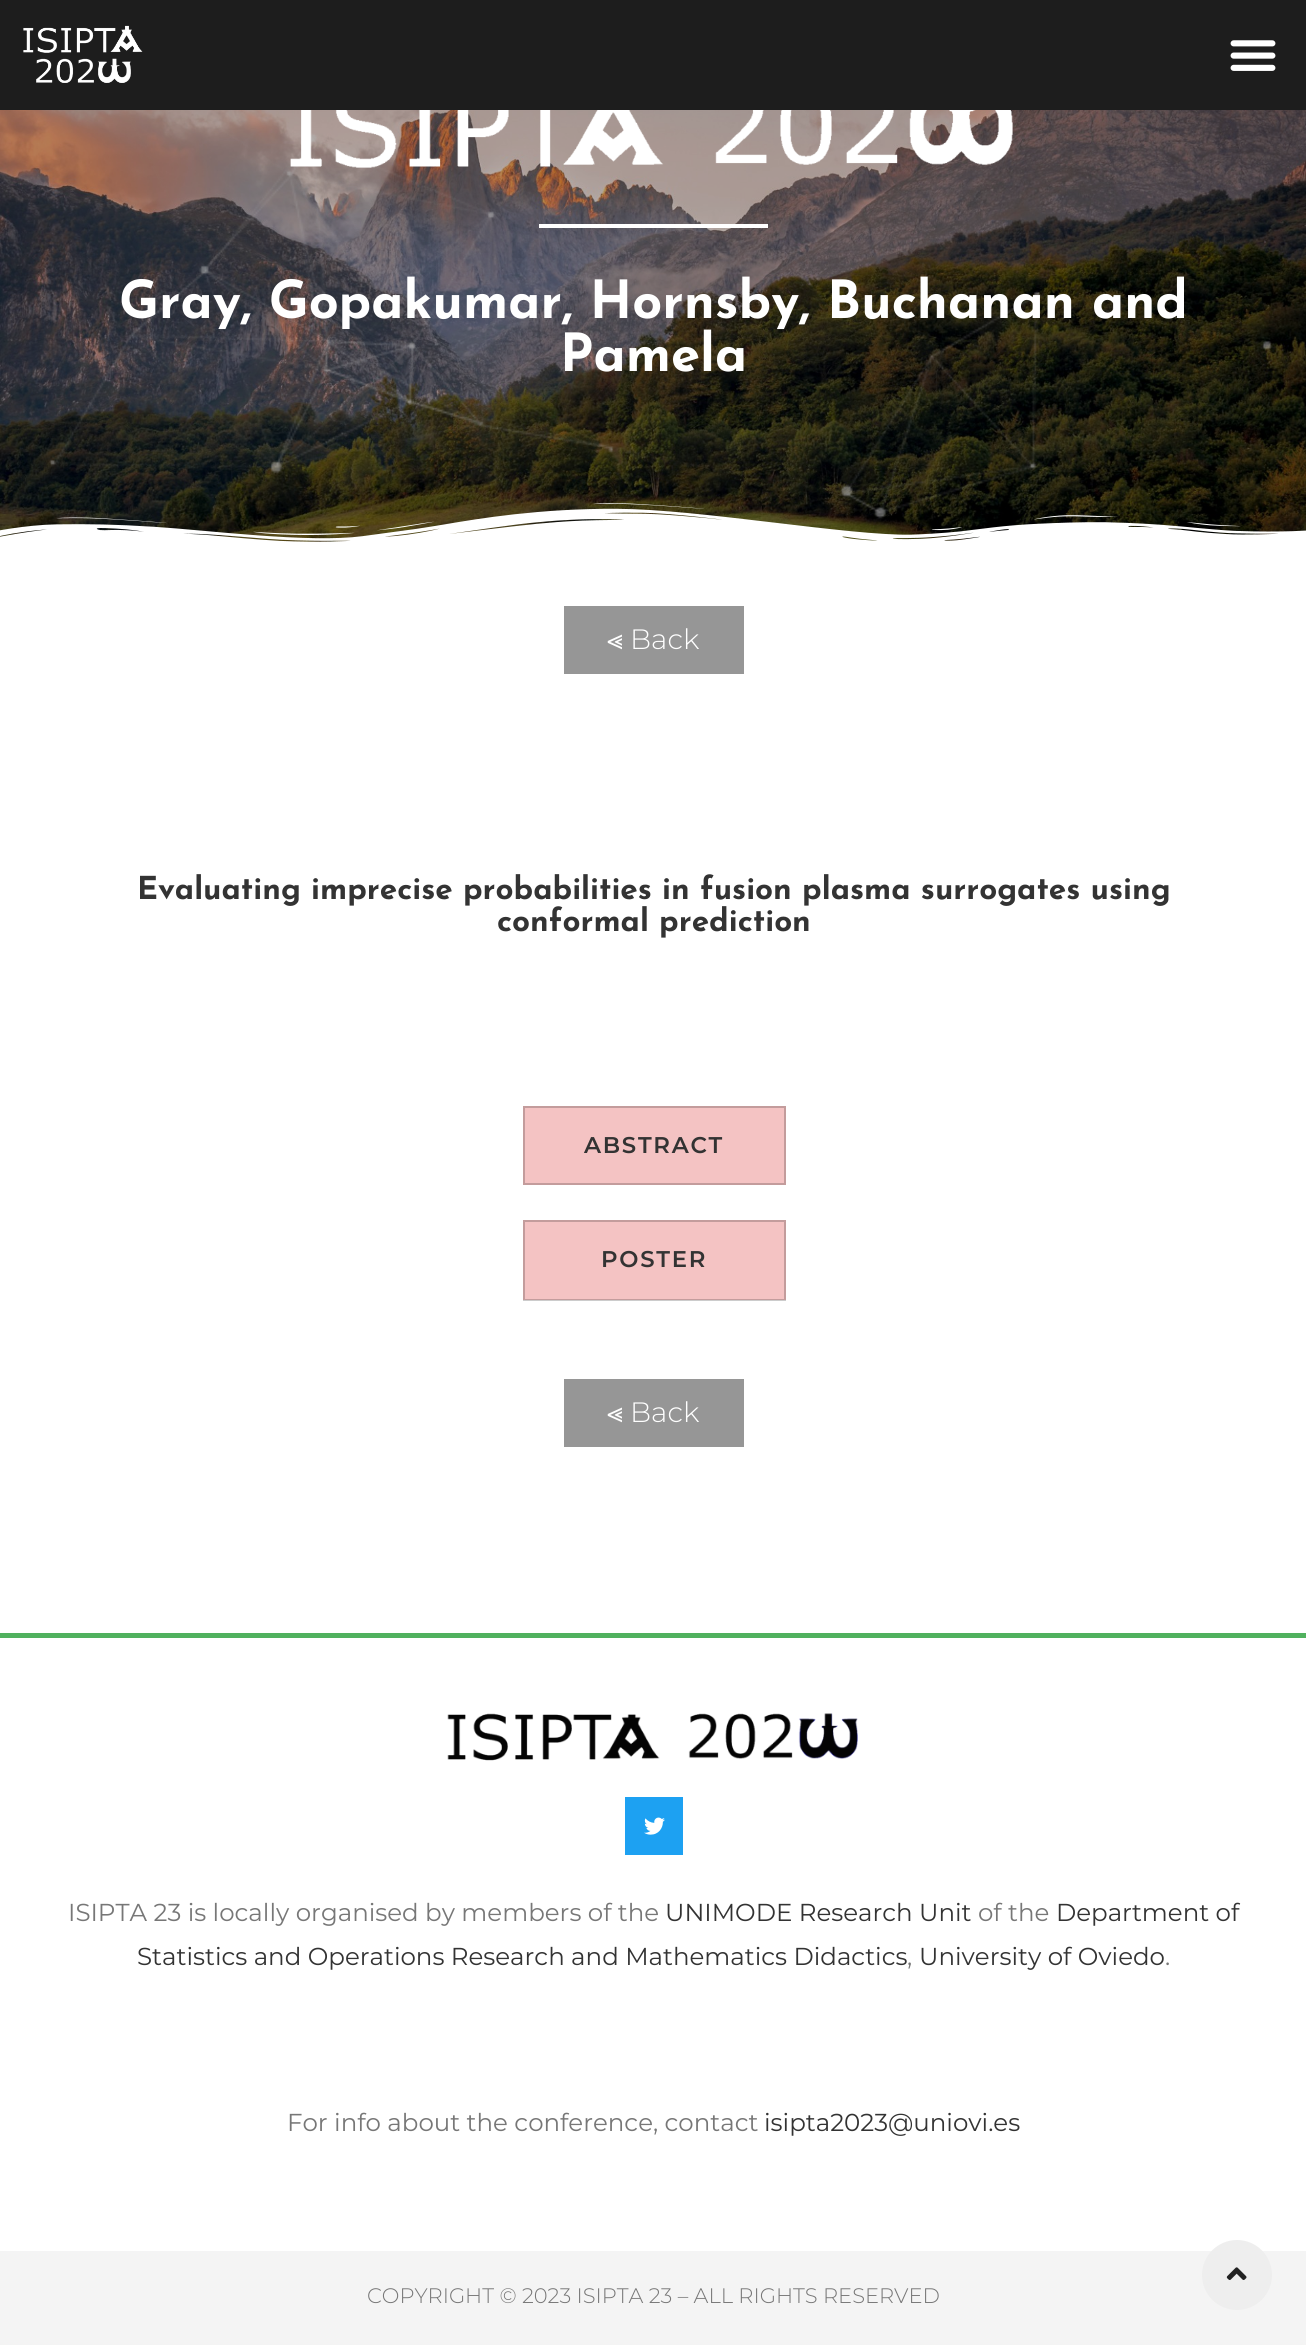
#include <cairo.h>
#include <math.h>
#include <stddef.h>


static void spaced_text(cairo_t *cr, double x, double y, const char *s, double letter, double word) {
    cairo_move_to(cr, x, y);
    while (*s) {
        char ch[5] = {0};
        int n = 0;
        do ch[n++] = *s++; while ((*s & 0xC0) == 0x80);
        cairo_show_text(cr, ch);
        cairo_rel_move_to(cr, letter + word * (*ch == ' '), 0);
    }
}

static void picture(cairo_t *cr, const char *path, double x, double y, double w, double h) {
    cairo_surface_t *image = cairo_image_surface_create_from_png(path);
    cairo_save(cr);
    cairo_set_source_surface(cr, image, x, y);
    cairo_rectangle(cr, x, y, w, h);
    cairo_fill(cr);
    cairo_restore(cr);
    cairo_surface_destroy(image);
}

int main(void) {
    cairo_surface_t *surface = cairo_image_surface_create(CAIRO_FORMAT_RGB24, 1306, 2345);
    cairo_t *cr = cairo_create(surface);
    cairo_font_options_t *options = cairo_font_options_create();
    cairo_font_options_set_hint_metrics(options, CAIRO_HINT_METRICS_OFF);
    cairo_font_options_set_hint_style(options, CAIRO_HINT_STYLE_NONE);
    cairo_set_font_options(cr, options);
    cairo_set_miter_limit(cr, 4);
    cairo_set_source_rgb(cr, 1, 1, 1);
    cairo_paint(cr);
    cairo_set_source_rgb(cr, 0.8, 0.8, 0.8);
    cairo_rectangle(cr, 523, 1300, 263, 1);
    cairo_fill(cr);
    cairo_set_source_rgb(cr, 0.114, 0.114, 0.114);
    cairo_rectangle(cr, 0, 0, 1306, 110);
    cairo_fill(cr);
    picture(cr, "img1.png", 23, 25, 120, 58);
    picture(cr, "img2.png", 1230, 40, 46, 31);
    picture(cr, "img3.png", 0, 110, 1306, 432);
    picture(cr, "img4.png", 49, 110, 1224, 409);
    picture(cr, "img5.png", 290, 110, 723, 58);
    cairo_set_source_rgb(cr, 1, 1, 1);
    cairo_rectangle(cr, 539, 224, 229, 4);
    cairo_fill(cr);
    cairo_select_font_face(cr, "Josefin Sans Thin", CAIRO_FONT_SLANT_NORMAL, CAIRO_FONT_WEIGHT_NORMAL);
    cairo_set_font_size(cr, 52.5);
    cairo_move_to(cr, 119, 318);
    cairo_show_text(cr, "Gray, Gopakumar, Hornsby, Buchanan and");
    cairo_move_to(cr, 560, 371);
    cairo_show_text(cr, "Pamela");
    picture(cr, "img6.png", 0, 503, 1306, 44);
    cairo_set_source_rgb(cr, 0.588, 0.588, 0.588);
    cairo_rectangle(cr, 564, 606, 180, 68);
    cairo_fill(cr);
    cairo_select_font_face(cr, "FreeSerif", CAIRO_FONT_SLANT_NORMAL, CAIRO_FONT_WEIGHT_NORMAL);
    cairo_set_font_size(cr, 28);
    cairo_set_source_rgb(cr, 1, 1, 1);
    cairo_move_to(cr, 607, 649);
    cairo_show_text(cr, "⪡");
    cairo_select_font_face(cr, "Montserrat Light", CAIRO_FONT_SLANT_NORMAL, CAIRO_FONT_WEIGHT_NORMAL);
    cairo_move_to(cr, 630, 649);
    cairo_show_text(cr, "Back");
    cairo_select_font_face(cr, "Josefin Sans Thin", CAIRO_FONT_SLANT_NORMAL, CAIRO_FONT_WEIGHT_NORMAL);
    cairo_set_font_size(cr, 31.5);
    cairo_set_source_rgb(cr, 0.2, 0.2, 0.2);
    cairo_move_to(cr, 137, 899);
    cairo_show_text(cr, "Evaluating imprecise probabilities in fusion plasma surrogates using");
    cairo_move_to(cr, 497, 931);
    cairo_show_text(cr, "conformal prediction");
    cairo_set_source_rgb(cr, 0.957, 0.765, 0.765);
    cairo_rectangle(cr, 525, 1108, 259, 75);
    cairo_fill(cr);
    cairo_set_source_rgb(cr, 0.765, 0.612, 0.612);
    cairo_rectangle(cr, 523, 1106, 263, 2);
    cairo_fill(cr);
    cairo_rectangle(cr, 523, 1183, 263, 2);
    cairo_fill(cr);
    cairo_rectangle(cr, 523, 1108, 2, 75);
    cairo_fill(cr);
    cairo_select_font_face(cr, "Montserrat SemiBold", CAIRO_FONT_SLANT_NORMAL, CAIRO_FONT_WEIGHT_NORMAL);
    cairo_set_font_size(cr, 22.75);
    cairo_set_source_rgb(cr, 0.2, 0.2, 0.2);
    spaced_text(cr, 584, 1153, "ABSTRACT", 1.75, 0);
    cairo_set_source_rgb(cr, 0.765, 0.612, 0.612);
    cairo_rectangle(cr, 784, 1108, 2, 75);
    cairo_fill(cr);
    cairo_set_source_rgb(cr, 0.957, 0.765, 0.765);
    cairo_rectangle(cr, 525, 1222, 259, 77);
    cairo_fill(cr);
    cairo_set_source_rgb(cr, 0.765, 0.612, 0.612);
    cairo_rectangle(cr, 523, 1299, 263, 1);
    cairo_fill(cr);
    cairo_rectangle(cr, 523, 1220, 263, 2);
    cairo_fill(cr);
    cairo_rectangle(cr, 523, 1222, 2, 77);
    cairo_fill(cr);
    cairo_set_source_rgb(cr, 0.2, 0.2, 0.2);
    spaced_text(cr, 601, 1267, "POSTER", 1.75, 0);
    cairo_set_source_rgb(cr, 0.765, 0.612, 0.612);
    cairo_rectangle(cr, 784, 1222, 2, 77);
    cairo_fill(cr);
    cairo_set_source_rgb(cr, 0.588, 0.588, 0.588);
    cairo_rectangle(cr, 564, 1379, 180, 68);
    cairo_fill(cr);
    cairo_select_font_face(cr, "FreeSerif", CAIRO_FONT_SLANT_NORMAL, CAIRO_FONT_WEIGHT_NORMAL);
    cairo_set_font_size(cr, 28);
    cairo_set_source_rgb(cr, 1, 1, 1);
    cairo_move_to(cr, 607, 1422);
    cairo_show_text(cr, "⪡");
    cairo_select_font_face(cr, "Montserrat Light", CAIRO_FONT_SLANT_NORMAL, CAIRO_FONT_WEIGHT_NORMAL);
    cairo_move_to(cr, 630, 1422);
    cairo_show_text(cr, "Back");
    cairo_set_source_rgb(cr, 0.314, 0.694, 0.369);
    cairo_rectangle(cr, 0, 1633, 1306, 5);
    cairo_fill(cr);
    picture(cr, "img7.png", 447, 1713, 411, 48);
    cairo_set_source_rgb(cr, 0.114, 0.631, 0.949);
    cairo_rectangle(cr, 625, 1797, 58, 58);
    cairo_fill(cr);
    picture(cr, "img8.png", 644, 1817, 21, 18);
    cairo_select_font_face(cr, "Montserrat", CAIRO_FONT_SLANT_NORMAL, CAIRO_FONT_WEIGHT_NORMAL);
    cairo_set_font_size(cr, 24.5);
    cairo_set_source_rgb(cr, 0.467, 0.467, 0.467);
    cairo_move_to(cr, 68, 1921);
    cairo_show_text(cr, "ISIPTA 23 is locally organised by members of the");
    cairo_set_source_rgb(cr, 0.2, 0.2, 0.2);
    cairo_move_to(cr, 665, 1921);
    cairo_show_text(cr, "UNIMODE Research Unit");
    cairo_set_source_rgb(cr, 0.467, 0.467, 0.467);
    cairo_move_to(cr, 978, 1921);
    cairo_show_text(cr, "of the");
    cairo_set_source_rgb(cr, 0.2, 0.2, 0.2);
    cairo_move_to(cr, 1056, 1921);
    cairo_show_text(cr, "Department of");
    cairo_move_to(cr, 137, 1965);
    cairo_show_text(cr, "Statistics and Operations Research and Mathematics Didactics");
    cairo_set_source_rgb(cr, 0.467, 0.467, 0.467);
    cairo_move_to(cr, 907, 1965);
    cairo_show_text(cr, ",");
    cairo_set_source_rgb(cr, 0.2, 0.2, 0.2);
    cairo_move_to(cr, 919, 1965);
    cairo_show_text(cr, "University of Oviedo");
    cairo_set_source_rgb(cr, 0.467, 0.467, 0.467);
    cairo_move_to(cr, 1165, 1965);
    cairo_show_text(cr, ".");
    cairo_move_to(cr, 287, 2131);
    cairo_show_text(cr, "For info about the conference, contact");
    cairo_set_source_rgb(cr, 0.2, 0.2, 0.2);
    cairo_move_to(cr, 764, 2131);
    cairo_show_text(cr, "isipta2023@uniovi.es");
    cairo_set_source_rgb(cr, 0.957, 0.957, 0.957);
    cairo_rectangle(cr, 0, 2251, 1306, 94);
    cairo_fill(cr);
    cairo_select_font_face(cr, "Montserrat Light", CAIRO_FONT_SLANT_NORMAL, CAIRO_FONT_WEIGHT_NORMAL);
    cairo_set_font_size(cr, 21);
    cairo_set_source_rgb(cr, 0.467, 0.467, 0.467);
    cairo_move_to(cr, 367, 2303);
    cairo_show_text(cr, "COPYRIGHT © 2023 ISIPTA 23 – ALL RIGHTS RESERVED");
    cairo_set_source_rgb(cr, 0.933, 0.933, 0.933);
    cairo_new_path(cr);
    cairo_arc(cr, 1237, 2275, 35, 0, 2 * M_PI);
    cairo_fill(cr);
    picture(cr, "img9.png", 1226, 2267, 21, 13);
    cairo_surface_write_to_png(surface, "page.png");
    cairo_font_options_destroy(options);
    cairo_destroy(cr);
    cairo_surface_destroy(surface);
    return 0;
}
